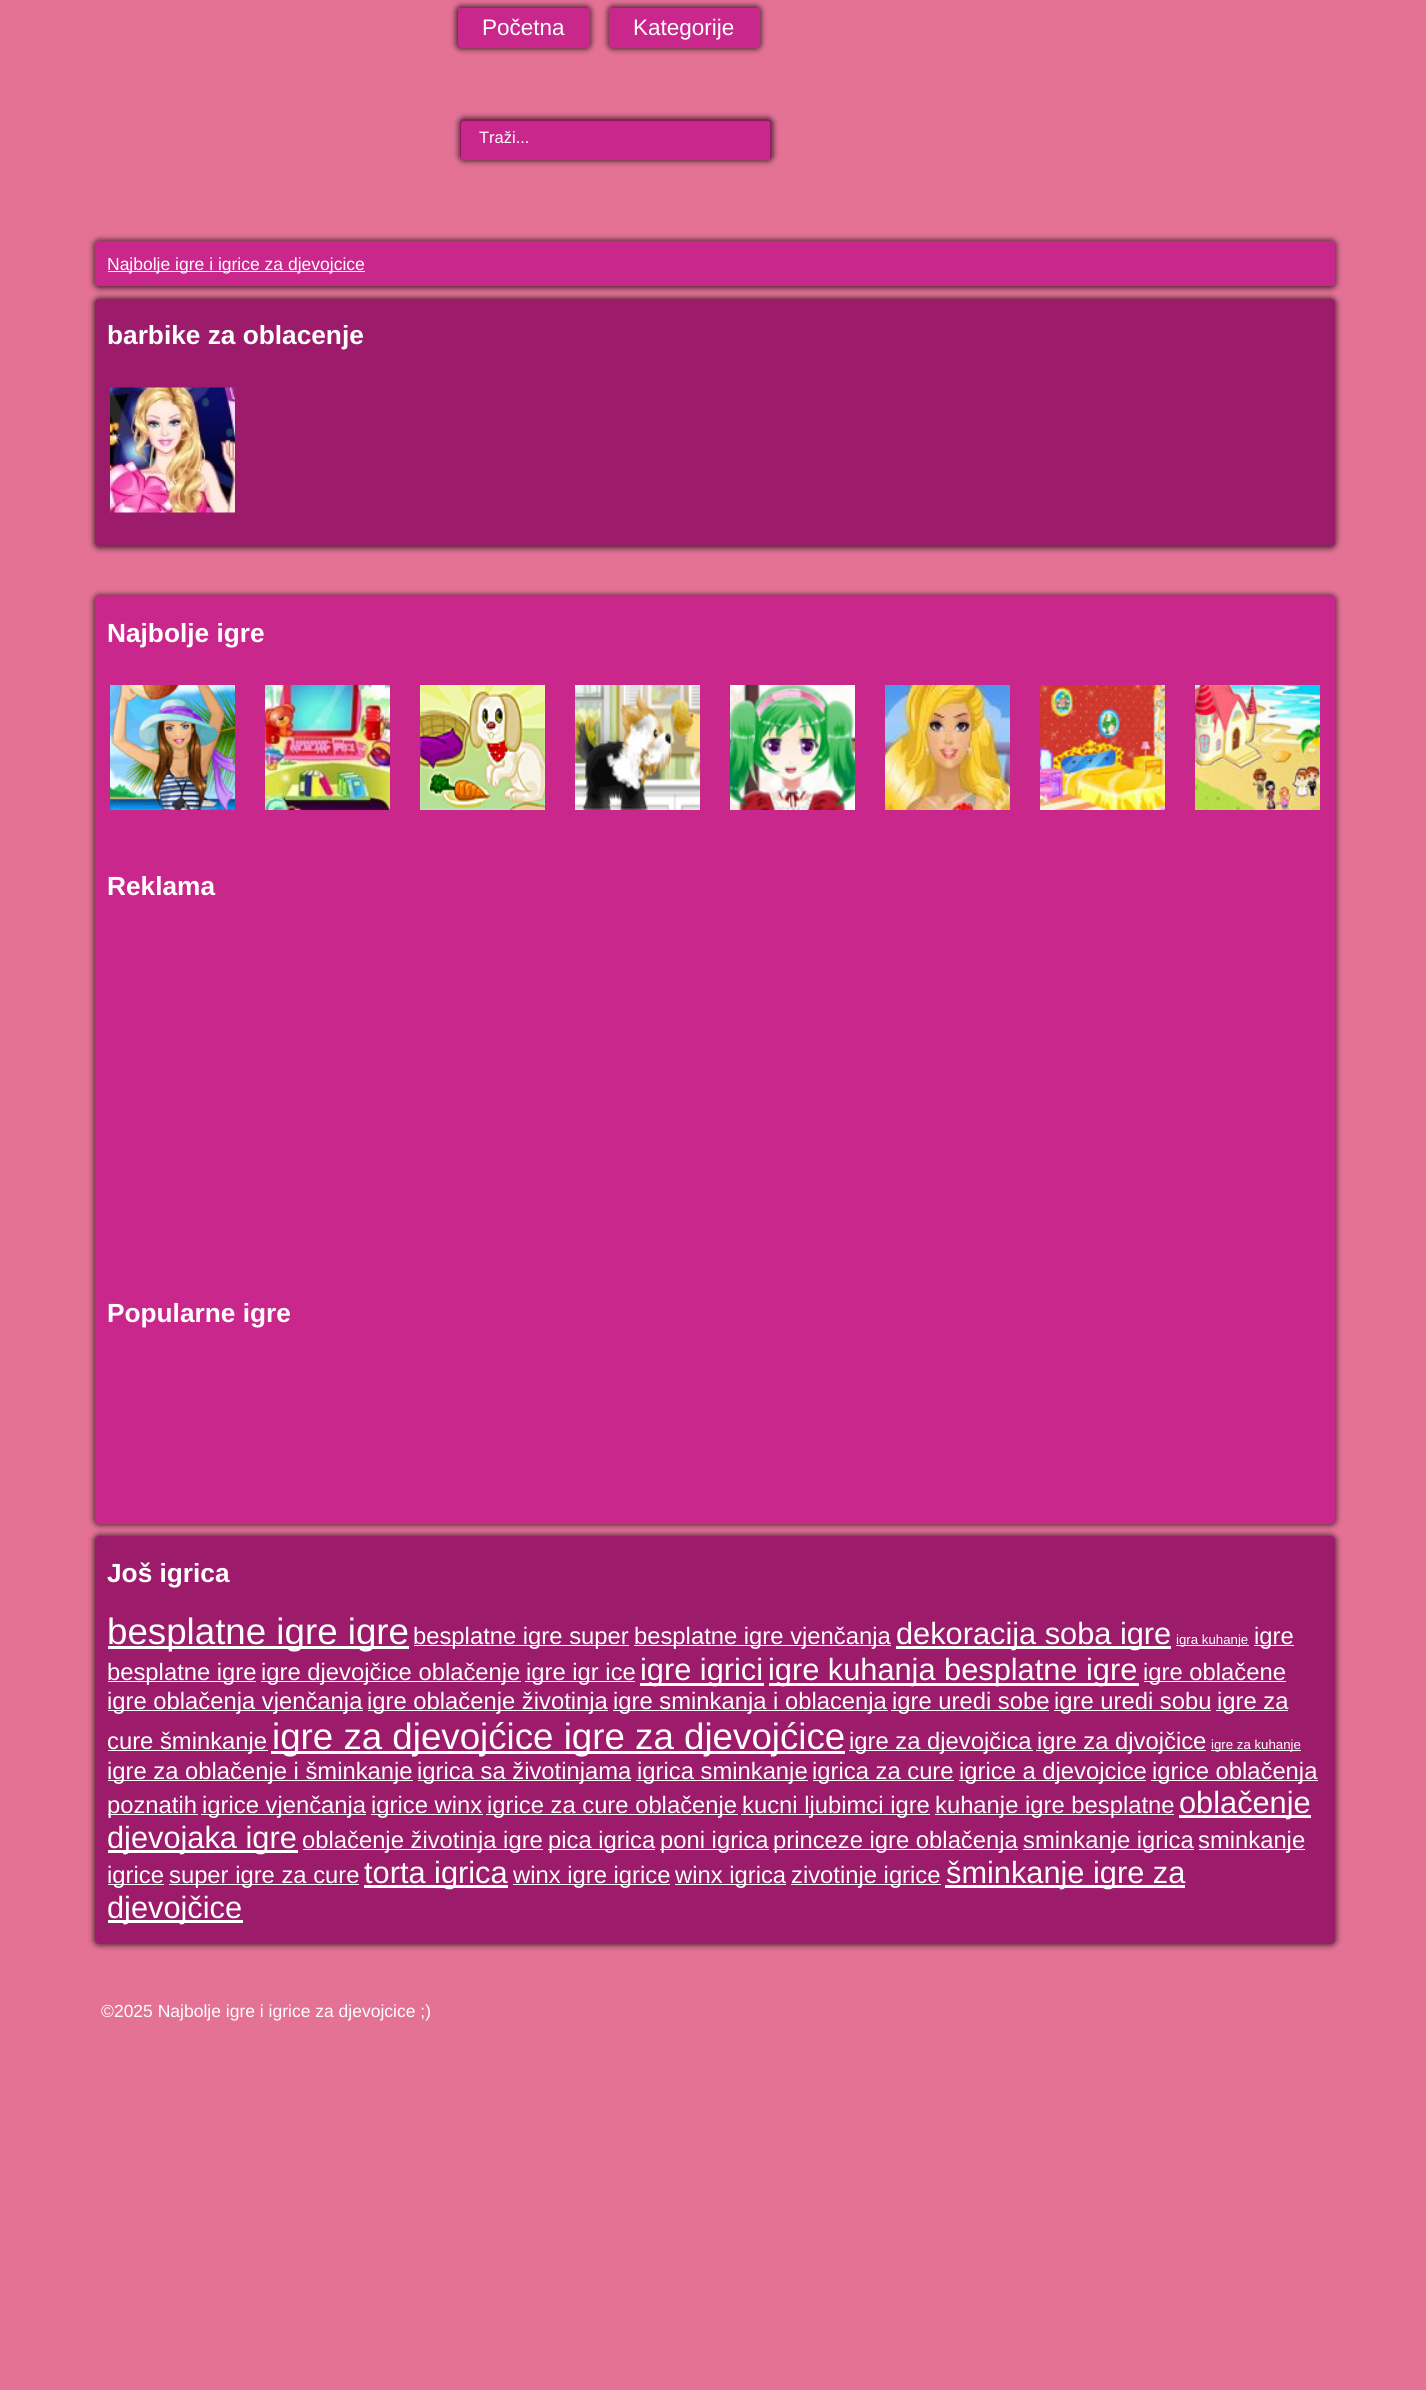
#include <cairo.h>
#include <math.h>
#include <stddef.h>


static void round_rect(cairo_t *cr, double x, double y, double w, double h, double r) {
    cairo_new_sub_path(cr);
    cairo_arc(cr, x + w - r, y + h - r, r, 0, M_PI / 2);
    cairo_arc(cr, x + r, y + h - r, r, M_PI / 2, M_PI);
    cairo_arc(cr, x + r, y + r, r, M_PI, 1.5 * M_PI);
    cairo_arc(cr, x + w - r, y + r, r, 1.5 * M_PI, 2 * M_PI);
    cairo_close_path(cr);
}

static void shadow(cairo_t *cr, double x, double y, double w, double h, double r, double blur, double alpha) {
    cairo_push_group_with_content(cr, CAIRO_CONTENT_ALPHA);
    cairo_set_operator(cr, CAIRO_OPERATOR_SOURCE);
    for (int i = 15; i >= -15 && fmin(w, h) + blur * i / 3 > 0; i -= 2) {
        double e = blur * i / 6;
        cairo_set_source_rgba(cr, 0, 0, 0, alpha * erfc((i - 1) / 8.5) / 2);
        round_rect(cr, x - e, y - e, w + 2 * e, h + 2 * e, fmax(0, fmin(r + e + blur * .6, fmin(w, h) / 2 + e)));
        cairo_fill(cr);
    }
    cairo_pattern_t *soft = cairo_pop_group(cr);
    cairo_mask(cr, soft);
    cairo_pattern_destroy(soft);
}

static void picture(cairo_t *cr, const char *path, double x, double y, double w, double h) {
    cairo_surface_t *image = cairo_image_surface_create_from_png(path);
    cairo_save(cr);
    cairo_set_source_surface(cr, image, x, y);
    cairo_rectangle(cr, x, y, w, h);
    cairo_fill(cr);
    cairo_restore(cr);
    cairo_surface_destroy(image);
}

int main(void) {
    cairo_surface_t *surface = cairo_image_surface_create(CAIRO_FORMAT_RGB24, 1426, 2390);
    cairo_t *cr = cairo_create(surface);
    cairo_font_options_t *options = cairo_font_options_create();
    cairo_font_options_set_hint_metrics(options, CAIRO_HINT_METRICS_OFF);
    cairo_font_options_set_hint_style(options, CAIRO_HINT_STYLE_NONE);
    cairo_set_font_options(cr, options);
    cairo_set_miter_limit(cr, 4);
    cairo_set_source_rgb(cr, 0.894, 0.447, 0.588);
    cairo_paint(cr);
    cairo_set_source_rgb(cr, 0, 0, 0);
    shadow(cr, 456, 6, 135, 43, 5, 3, 0.7);
    cairo_set_source_rgb(cr, 0.792, 0.153, 0.549);
    cairo_new_path(cr);
    cairo_move_to(cr, 458, 8);
    cairo_line_to(cr, 590, 8);
    cairo_line_to(cr, 590, 44);
    cairo_curve_to(cr, 590, 46, 588, 48, 586, 48);
    cairo_line_to(cr, 462, 48);
    cairo_curve_to(cr, 460, 48, 458, 46, 458, 44);
    cairo_close_path(cr);
    cairo_fill(cr);
    cairo_select_font_face(cr, "Liberation Sans", CAIRO_FONT_SLANT_NORMAL, CAIRO_FONT_WEIGHT_NORMAL);
    cairo_set_font_size(cr, 22.5);
    cairo_set_source_rgb(cr, 1, 1, 1);
    cairo_move_to(cr, 482, 35);
    cairo_show_text(cr, "Početna");
    cairo_set_source_rgb(cr, 0, 0, 0);
    shadow(cr, 608, 6, 153, 43, 5, 3, 0.7);
    cairo_set_source_rgb(cr, 0.792, 0.153, 0.549);
    cairo_new_path(cr);
    cairo_move_to(cr, 609, 8);
    cairo_line_to(cr, 760, 8);
    cairo_line_to(cr, 760, 44);
    cairo_curve_to(cr, 760, 46, 758, 48, 756, 48);
    cairo_line_to(cr, 613, 48);
    cairo_curve_to(cr, 611, 48, 609, 46, 609, 44);
    cairo_close_path(cr);
    cairo_fill(cr);
    cairo_set_source_rgb(cr, 1, 1, 1);
    cairo_move_to(cr, 633, 35);
    cairo_show_text(cr, "Kategorije");
    cairo_set_source_rgb(cr, 0, 0, 0);
    shadow(cr, 459, 118, 314, 43, 5, 3, 0.7);
    cairo_set_source_rgb(cr, 0.792, 0.153, 0.549);
    round_rect(cr, 460, 119, 311, 41, 4);
    cairo_fill(cr);
    cairo_set_source_rgba(cr, 0, 0, 0, 0.3);
    cairo_new_path(cr);
    cairo_move_to(cr, 464, 121);
    cairo_line_to(cr, 768, 121);
    cairo_curve_to(cr, 769, 121, 770, 122, 770, 124);
    cairo_line_to(cr, 770, 159);
    cairo_curve_to(cr, 771, 158, 771, 157, 771, 156);
    cairo_line_to(cr, 771, 123);
    cairo_curve_to(cr, 771, 121, 769, 119, 767, 119);
    cairo_line_to(cr, 464, 119);
    cairo_curve_to(cr, 462, 119, 460, 121, 460, 123);
    cairo_line_to(cr, 460, 156);
    cairo_curve_to(cr, 460, 157, 461, 158, 461, 159);
    cairo_line_to(cr, 461, 158);
    cairo_line_to(cr, 461, 124);
    cairo_curve_to(cr, 461, 122, 462, 121, 464, 121);
    cairo_close_path(cr);
    cairo_fill(cr);
    cairo_set_font_size(cr, 16.5);
    cairo_set_source_rgb(cr, 1, 1, 1);
    cairo_move_to(cr, 479, 143);
    cairo_show_text(cr, "Traži...");
    cairo_set_source_rgb(cr, 0, 0, 0);
    shadow(cr, 94, 240, 1242, 48, 5, 3, 0.7);
    cairo_set_source_rgb(cr, 0.792, 0.153, 0.549);
    round_rect(cr, 95, 241, 1240, 45, 4);
    cairo_fill(cr);
    cairo_set_source_rgb(cr, 1, 1, 1);
    cairo_rectangle(cr, 108, 271, 257, 1);
    cairo_fill(cr);
    cairo_set_font_size(cr, 17.5);
    cairo_move_to(cr, 107, 270);
    cairo_show_text(cr, "Najbolje igre i igrice za djevojcice");
    cairo_set_source_rgb(cr, 0, 0, 0);
    shadow(cr, 94, 298, 1242, 250, 5, 3, 0.7);
    cairo_set_source_rgb(cr, 0.612, 0.11, 0.42);
    round_rect(cr, 95, 299, 1240, 247, 4);
    cairo_fill(cr);
    cairo_select_font_face(cr, "Liberation Sans", CAIRO_FONT_SLANT_NORMAL, CAIRO_FONT_WEIGHT_BOLD);
    cairo_set_font_size(cr, 26.25);
    cairo_set_source_rgb(cr, 1, 1, 1);
    cairo_move_to(cr, 107, 344);
    cairo_show_text(cr, "barbike za oblacenje");
    picture(cr, "img1.png", 110, 387, 125, 126);
    cairo_set_source_rgb(cr, 0, 0, 0);
    shadow(cr, 94, 595, 1242, 930, 5, 3, 0.7);
    cairo_set_source_rgb(cr, 0.792, 0.153, 0.549);
    round_rect(cr, 95, 596, 1240, 928, 4);
    cairo_fill(cr);
    cairo_set_source_rgb(cr, 1, 1, 1);
    cairo_move_to(cr, 107, 642);
    cairo_show_text(cr, "Najbolje igre");
    picture(cr, "img2.png", 110, 685, 125, 125);
    picture(cr, "img3.png", 265, 685, 125, 125);
    picture(cr, "img4.png", 420, 685, 125, 125);
    picture(cr, "img5.png", 575, 685, 125, 125);
    picture(cr, "img6.png", 730, 685, 125, 125);
    picture(cr, "img7.png", 885, 685, 125, 125);
    picture(cr, "img8.png", 1040, 685, 125, 125);
    picture(cr, "img9.png", 1195, 685, 125, 125);
    cairo_move_to(cr, 107, 895);
    cairo_show_text(cr, "Reklama");
    cairo_move_to(cr, 107, 1322);
    cairo_show_text(cr, "Popularne igre");
    cairo_set_source_rgb(cr, 0, 0, 0);
    shadow(cr, 94, 1535, 1242, 410, 5, 3, 0.7);
    cairo_set_source_rgb(cr, 0.612, 0.11, 0.42);
    round_rect(cr, 95, 1536, 1240, 408, 4);
    cairo_fill(cr);
    cairo_set_source_rgb(cr, 1, 1, 1);
    cairo_move_to(cr, 107, 1582);
    cairo_show_text(cr, "Još igrica");
    cairo_rectangle(cr, 108, 1646, 301, 3);
    cairo_fill(cr);
    cairo_select_font_face(cr, "Liberation Sans", CAIRO_FONT_SLANT_NORMAL, CAIRO_FONT_WEIGHT_NORMAL);
    cairo_set_font_size(cr, 36.7);
    cairo_move_to(cr, 107, 1644);
    cairo_show_text(cr, "besplatne igre igre");
    cairo_rectangle(cr, 414, 1645, 215, 1);
    cairo_fill(cr);
    cairo_set_font_size(cr, 23.8);
    cairo_move_to(cr, 413, 1644);
    cairo_show_text(cr, "besplatne igre super");
    cairo_rectangle(cr, 634, 1645, 257, 1);
    cairo_fill(cr);
    cairo_move_to(cr, 634, 1644);
    cairo_show_text(cr, "besplatne igre vjenčanja");
    cairo_rectangle(cr, 896, 1646, 275, 3);
    cairo_fill(cr);
    cairo_set_font_size(cr, 30.75);
    cairo_move_to(cr, 896, 1644);
    cairo_show_text(cr, "dekoracija soba igre");
    cairo_rectangle(cr, 1176, 1645, 73, 1);
    cairo_fill(cr);
    cairo_set_font_size(cr, 13.25);
    cairo_move_to(cr, 1176, 1644);
    cairo_show_text(cr, "igra kuhanje");
    cairo_rectangle(cr, 1254, 1645, 40, 1);
    cairo_fill(cr);
    cairo_set_font_size(cr, 23.8);
    cairo_move_to(cr, 1254, 1644);
    cairo_show_text(cr, "igre");
    cairo_rectangle(cr, 108, 1681, 148, 1);
    cairo_fill(cr);
    cairo_move_to(cr, 107, 1680);
    cairo_show_text(cr, "besplatne igre");
    cairo_rectangle(cr, 261, 1681, 260, 1);
    cairo_fill(cr);
    cairo_move_to(cr, 261, 1680);
    cairo_show_text(cr, "igre djevojčice oblačenje");
    cairo_rectangle(cr, 525, 1681, 110, 1);
    cairo_fill(cr);
    cairo_move_to(cr, 526, 1680);
    cairo_show_text(cr, "igre igr ice");
    cairo_rectangle(cr, 640, 1683, 124, 3);
    cairo_fill(cr);
    cairo_set_font_size(cr, 30.75);
    cairo_move_to(cr, 640, 1680);
    cairo_show_text(cr, "igre igrici");
    cairo_rectangle(cr, 769, 1683, 370, 3);
    cairo_fill(cr);
    cairo_move_to(cr, 768, 1680);
    cairo_show_text(cr, "igre kuhanja besplatne igre");
    cairo_rectangle(cr, 1144, 1681, 142, 1);
    cairo_fill(cr);
    cairo_set_font_size(cr, 23.8);
    cairo_move_to(cr, 1143, 1680);
    cairo_show_text(cr, "igre oblačene");
    cairo_rectangle(cr, 108, 1710, 255, 1);
    cairo_fill(cr);
    cairo_move_to(cr, 107, 1709);
    cairo_show_text(cr, "igre oblačenja vjenčanja");
    cairo_rectangle(cr, 368, 1710, 240, 1);
    cairo_fill(cr);
    cairo_move_to(cr, 367, 1709);
    cairo_show_text(cr, "igre oblačenje životinja");
    cairo_rectangle(cr, 613, 1710, 275, 1);
    cairo_fill(cr);
    cairo_move_to(cr, 613, 1709);
    cairo_show_text(cr, "igre sminkanja i oblacenja");
    cairo_rectangle(cr, 891, 1710, 158, 1);
    cairo_fill(cr);
    cairo_move_to(cr, 892, 1709);
    cairo_show_text(cr, "igre uredi sobe");
    cairo_rectangle(cr, 1054, 1710, 157, 1);
    cairo_fill(cr);
    cairo_move_to(cr, 1054, 1709);
    cairo_show_text(cr, "igre uredi sobu");
    cairo_rectangle(cr, 1216, 1710, 72, 1);
    cairo_fill(cr);
    cairo_move_to(cr, 1217, 1709);
    cairo_show_text(cr, "igre za");
    cairo_rectangle(cr, 108, 1750, 160, 1);
    cairo_fill(cr);
    cairo_move_to(cr, 107, 1749);
    cairo_show_text(cr, "cure šminkanje");
    cairo_rectangle(cr, 271, 1751, 574, 3);
    cairo_fill(cr);
    cairo_set_font_size(cr, 36.7);
    cairo_move_to(cr, 272, 1749);
    cairo_show_text(cr, "igre za djevojćice igre za djevojćice");
    cairo_rectangle(cr, 849, 1750, 184, 1);
    cairo_fill(cr);
    cairo_set_font_size(cr, 23.8);
    cairo_move_to(cr, 849, 1749);
    cairo_show_text(cr, "igre za djevojčica");
    cairo_rectangle(cr, 1036, 1750, 170, 1);
    cairo_fill(cr);
    cairo_move_to(cr, 1037, 1749);
    cairo_show_text(cr, "igre za djvojčice");
    cairo_rectangle(cr, 1211, 1750, 90, 1);
    cairo_fill(cr);
    cairo_set_font_size(cr, 13.25);
    cairo_move_to(cr, 1211, 1749);
    cairo_show_text(cr, "igre za kuhanje");
    cairo_rectangle(cr, 108, 1780, 305, 1);
    cairo_fill(cr);
    cairo_set_font_size(cr, 23.8);
    cairo_move_to(cr, 107, 1779);
    cairo_show_text(cr, "igre za oblačenje i šminkanje");
    cairo_rectangle(cr, 418, 1780, 213, 1);
    cairo_fill(cr);
    cairo_move_to(cr, 417, 1779);
    cairo_show_text(cr, "igrica sa životinjama");
    cairo_rectangle(cr, 636, 1780, 172, 1);
    cairo_fill(cr);
    cairo_move_to(cr, 637, 1779);
    cairo_show_text(cr, "igrica sminkanje");
    cairo_rectangle(cr, 813, 1780, 141, 1);
    cairo_fill(cr);
    cairo_move_to(cr, 812, 1779);
    cairo_show_text(cr, "igrica za cure");
    cairo_rectangle(cr, 959, 1780, 187, 1);
    cairo_fill(cr);
    cairo_move_to(cr, 959, 1779);
    cairo_show_text(cr, "igrice a djevojcice");
    cairo_rectangle(cr, 1151, 1780, 167, 1);
    cairo_fill(cr);
    cairo_move_to(cr, 1152, 1779);
    cairo_show_text(cr, "igrice oblačenja");
    cairo_rectangle(cr, 108, 1814, 90, 1);
    cairo_fill(cr);
    cairo_move_to(cr, 107, 1813);
    cairo_show_text(cr, "poznatih");
    cairo_rectangle(cr, 201, 1814, 165, 1);
    cairo_fill(cr);
    cairo_move_to(cr, 202, 1813);
    cairo_show_text(cr, "igrice vjenčanja");
    cairo_rectangle(cr, 371, 1814, 112, 1);
    cairo_fill(cr);
    cairo_move_to(cr, 371, 1813);
    cairo_show_text(cr, "igrice winx");
    cairo_rectangle(cr, 486, 1814, 252, 1);
    cairo_fill(cr);
    cairo_move_to(cr, 487, 1813);
    cairo_show_text(cr, "igrice za cure oblačenje");
    cairo_rectangle(cr, 741, 1814, 189, 1);
    cairo_fill(cr);
    cairo_move_to(cr, 742, 1813);
    cairo_show_text(cr, "kucni ljubimci igre");
    cairo_rectangle(cr, 935, 1814, 239, 1);
    cairo_fill(cr);
    cairo_move_to(cr, 935, 1813);
    cairo_show_text(cr, "kuhanje igre besplatne");
    cairo_rectangle(cr, 1179, 1815, 132, 3);
    cairo_fill(cr);
    cairo_set_font_size(cr, 30.75);
    cairo_move_to(cr, 1179, 1813);
    cairo_show_text(cr, "oblačenje");
    cairo_rectangle(cr, 108, 1850, 190, 3);
    cairo_fill(cr);
    cairo_move_to(cr, 107, 1848);
    cairo_show_text(cr, "djevojaka igre");
    cairo_rectangle(cr, 303, 1849, 240, 1);
    cairo_fill(cr);
    cairo_set_font_size(cr, 23.8);
    cairo_move_to(cr, 302, 1848);
    cairo_show_text(cr, "oblačenje životinja igre");
    cairo_rectangle(cr, 548, 1849, 107, 1);
    cairo_fill(cr);
    cairo_move_to(cr, 548, 1848);
    cairo_show_text(cr, "pica igrica");
    cairo_rectangle(cr, 660, 1849, 109, 1);
    cairo_fill(cr);
    cairo_move_to(cr, 660, 1848);
    cairo_show_text(cr, "poni igrica");
    cairo_rectangle(cr, 773, 1849, 245, 1);
    cairo_fill(cr);
    cairo_move_to(cr, 773, 1848);
    cairo_show_text(cr, "princeze igre oblačenja");
    cairo_rectangle(cr, 1023, 1849, 171, 1);
    cairo_fill(cr);
    cairo_move_to(cr, 1023, 1848);
    cairo_show_text(cr, "sminkanje igrica");
    cairo_rectangle(cr, 1199, 1849, 106, 1);
    cairo_fill(cr);
    cairo_move_to(cr, 1198, 1848);
    cairo_show_text(cr, "sminkanje");
    cairo_rectangle(cr, 108, 1884, 56, 1);
    cairo_fill(cr);
    cairo_move_to(cr, 107, 1883);
    cairo_show_text(cr, "igrice");
    cairo_rectangle(cr, 169, 1884, 190, 1);
    cairo_fill(cr);
    cairo_move_to(cr, 169, 1883);
    cairo_show_text(cr, "super igre za cure");
    cairo_rectangle(cr, 364, 1885, 144, 3);
    cairo_fill(cr);
    cairo_set_font_size(cr, 30.75);
    cairo_move_to(cr, 364, 1883);
    cairo_show_text(cr, "torta igrica");
    cairo_rectangle(cr, 513, 1884, 157, 1);
    cairo_fill(cr);
    cairo_set_font_size(cr, 23.8);
    cairo_move_to(cr, 513, 1883);
    cairo_show_text(cr, "winx igre igrice");
    cairo_rectangle(cr, 675, 1884, 111, 1);
    cairo_fill(cr);
    cairo_move_to(cr, 675, 1883);
    cairo_show_text(cr, "winx igrica");
    cairo_rectangle(cr, 791, 1884, 150, 1);
    cairo_fill(cr);
    cairo_move_to(cr, 791, 1883);
    cairo_show_text(cr, "zivotinje igrice");
    cairo_rectangle(cr, 945, 1885, 240, 3);
    cairo_fill(cr);
    cairo_set_font_size(cr, 30.75);
    cairo_move_to(cr, 946, 1883);
    cairo_show_text(cr, "šminkanje igre za");
    cairo_rectangle(cr, 108, 1920, 135, 3);
    cairo_fill(cr);
    cairo_move_to(cr, 107, 1918);
    cairo_show_text(cr, "djevojčice");
    cairo_set_font_size(cr, 17.5);
    cairo_move_to(cr, 101, 2017);
    cairo_show_text(cr, "©2025 Najbolje igre i igrice za djevojcice ;)");
    cairo_surface_write_to_png(surface, "page.png");
    cairo_font_options_destroy(options);
    cairo_destroy(cr);
    cairo_surface_destroy(surface);
    return 0;
}
